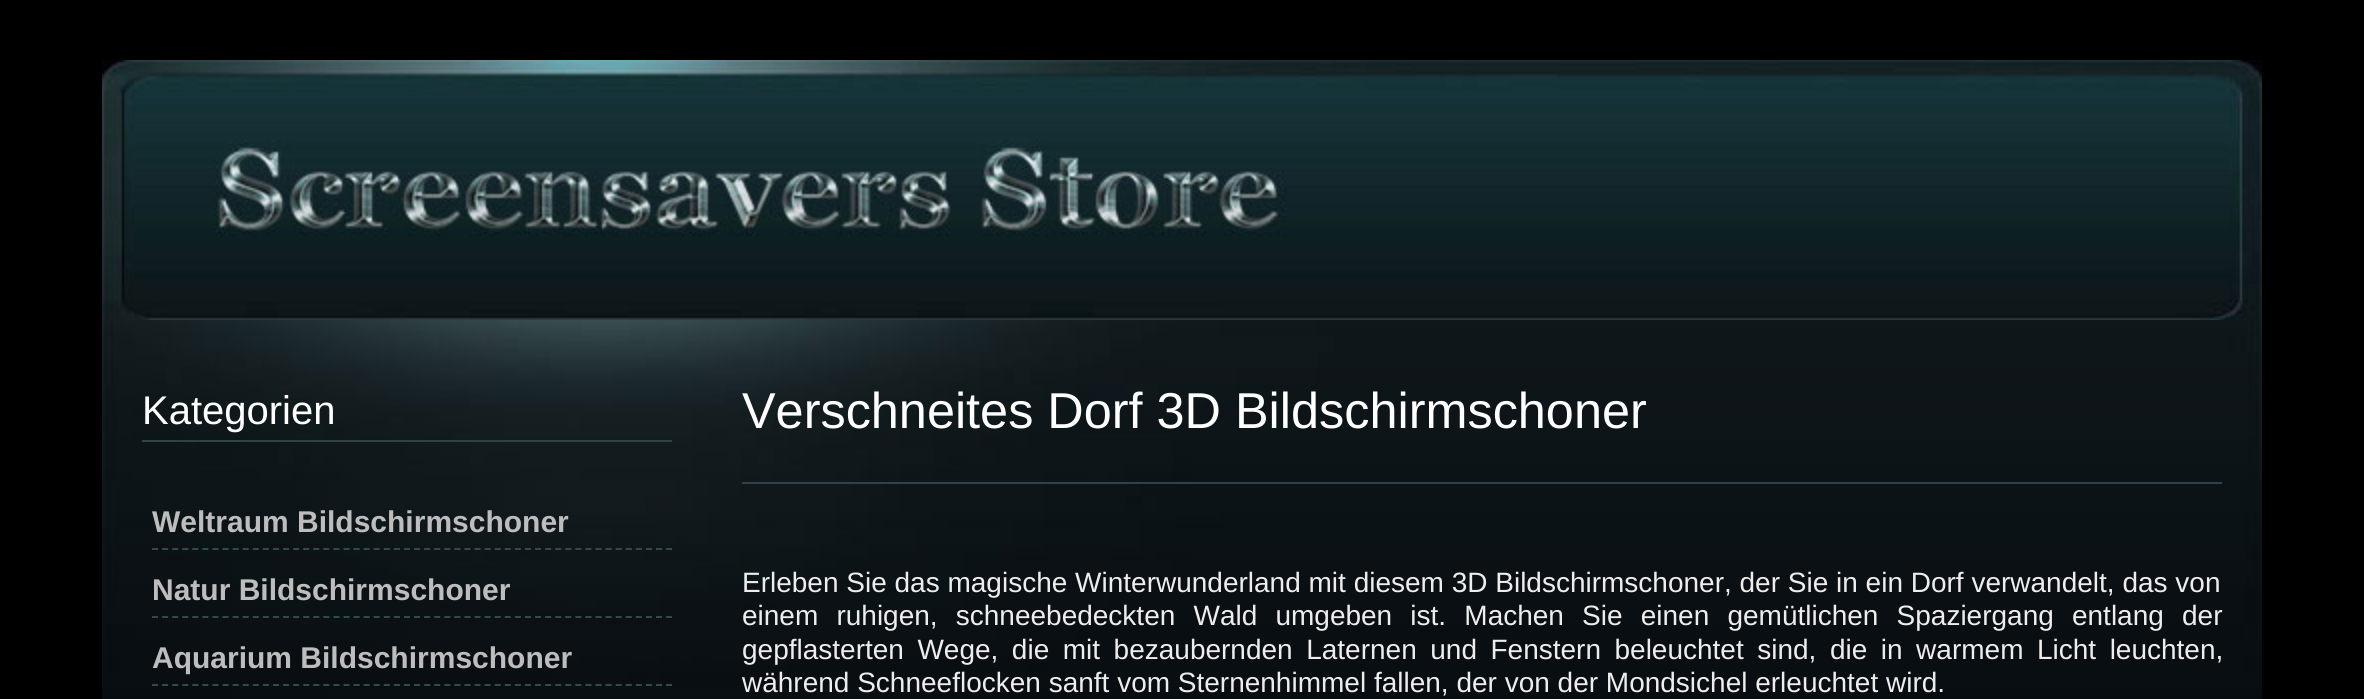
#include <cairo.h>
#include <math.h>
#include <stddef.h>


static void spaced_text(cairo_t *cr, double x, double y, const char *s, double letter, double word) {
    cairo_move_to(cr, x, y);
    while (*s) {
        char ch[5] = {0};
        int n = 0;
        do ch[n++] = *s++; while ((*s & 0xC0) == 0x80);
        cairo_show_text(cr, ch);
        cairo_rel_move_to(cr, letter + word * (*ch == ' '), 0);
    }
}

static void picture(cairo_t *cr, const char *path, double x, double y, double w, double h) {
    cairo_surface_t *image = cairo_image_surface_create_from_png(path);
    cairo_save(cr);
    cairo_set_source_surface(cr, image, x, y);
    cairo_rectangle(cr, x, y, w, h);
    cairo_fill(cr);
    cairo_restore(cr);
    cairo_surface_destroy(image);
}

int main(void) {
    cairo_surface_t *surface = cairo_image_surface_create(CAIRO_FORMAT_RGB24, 2364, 699);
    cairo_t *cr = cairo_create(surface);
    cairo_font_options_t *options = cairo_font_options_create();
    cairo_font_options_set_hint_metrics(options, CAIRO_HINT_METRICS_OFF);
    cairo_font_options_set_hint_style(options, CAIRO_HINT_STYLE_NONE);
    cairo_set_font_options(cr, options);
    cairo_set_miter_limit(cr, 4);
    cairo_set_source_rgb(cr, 0, 0, 0);
    cairo_paint(cr);
    picture(cr, "img1.png", 102, 60, 2160, 260);
    picture(cr, "img2.png", 102, 320, 2160, 379);
    cairo_set_source_rgb(cr, 0.173, 0.267, 0.286);
    cairo_rectangle(cr, 142, 440, 530, 2);
    cairo_fill(cr);
    cairo_select_font_face(cr, "Liberation Sans", CAIRO_FONT_SLANT_NORMAL, CAIRO_FONT_WEIGHT_NORMAL);
    cairo_set_font_size(cr, 40);
    cairo_set_source_rgb(cr, 1, 1, 1);
    cairo_move_to(cr, 142, 424);
    cairo_show_text(cr, "Kategorien");
    cairo_new_path(cr);
    cairo_move_to(cr, 152, 549);
    cairo_line_to(cr, 672, 549);
    cairo_set_source_rgb(cr, 0.192, 0.29, 0.31);
    cairo_set_dash(cr, (double[]){6, 4.08}, 2, 0);
    cairo_stroke(cr);
    cairo_select_font_face(cr, "Liberation Sans", CAIRO_FONT_SLANT_NORMAL, CAIRO_FONT_WEIGHT_BOLD);
    cairo_set_font_size(cr, 30);
    cairo_set_source_rgb(cr, 0.741, 0.741, 0.741);
    cairo_move_to(cr, 152, 532);
    cairo_show_text(cr, "Weltraum Bildschirmschoner");
    cairo_new_path(cr);
    cairo_move_to(cr, 152, 617);
    cairo_line_to(cr, 672, 617);
    cairo_set_source_rgb(cr, 0.192, 0.29, 0.31);
    cairo_stroke(cr);
    cairo_set_source_rgb(cr, 0.741, 0.741, 0.741);
    cairo_move_to(cr, 152, 600);
    cairo_show_text(cr, "Natur Bildschirmschoner");
    cairo_new_path(cr);
    cairo_move_to(cr, 152, 685);
    cairo_line_to(cr, 672, 685);
    cairo_set_source_rgb(cr, 0.192, 0.29, 0.31);
    cairo_stroke(cr);
    cairo_set_source_rgb(cr, 0.741, 0.741, 0.741);
    cairo_move_to(cr, 152, 668);
    cairo_show_text(cr, "Aquarium Bildschirmschoner");
    cairo_select_font_face(cr, "Liberation Sans", CAIRO_FONT_SLANT_NORMAL, CAIRO_FONT_WEIGHT_NORMAL);
    cairo_set_font_size(cr, 50.4);
    cairo_set_source_rgb(cr, 1, 1, 1);
    cairo_move_to(cr, 742, 428);
    cairo_show_text(cr, "Verschneites Dorf 3D Bildschirmschoner");
    cairo_set_source_rgb(cr, 0.173, 0.267, 0.286);
    cairo_rectangle(cr, 742, 482, 1480, 2);
    cairo_fill(cr);
    cairo_set_font_size(cr, 28);
    cairo_set_source_rgb(cr, 0.929, 0.929, 0.929);
    cairo_move_to(cr, 742, 592);
    cairo_show_text(cr, "Erleben Sie das magische Winterwunderland mit diesem 3D Bildschirmschoner, der Sie in ein Dorf verwandelt, das von");
    spaced_text(cr, 742, 625, "einem ruhigen, schneebedeckten Wald umgeben ist. Machen Sie einen gemütlichen Spaziergang entlang der", 0, 10.4);
    spaced_text(cr, 742, 659, "gepflasterten Wege, die mit bezaubernden Laternen und Fenstern beleuchtet sind, die in warmem Licht leuchten,", 0, 5.75);
    cairo_move_to(cr, 742, 692);
    cairo_show_text(cr, "während Schneeflocken sanft vom Sternenhimmel fallen, der von der Mondsichel erleuchtet wird.");
    cairo_surface_write_to_png(surface, "page.png");
    cairo_font_options_destroy(options);
    cairo_destroy(cr);
    cairo_surface_destroy(surface);
    return 0;
}
